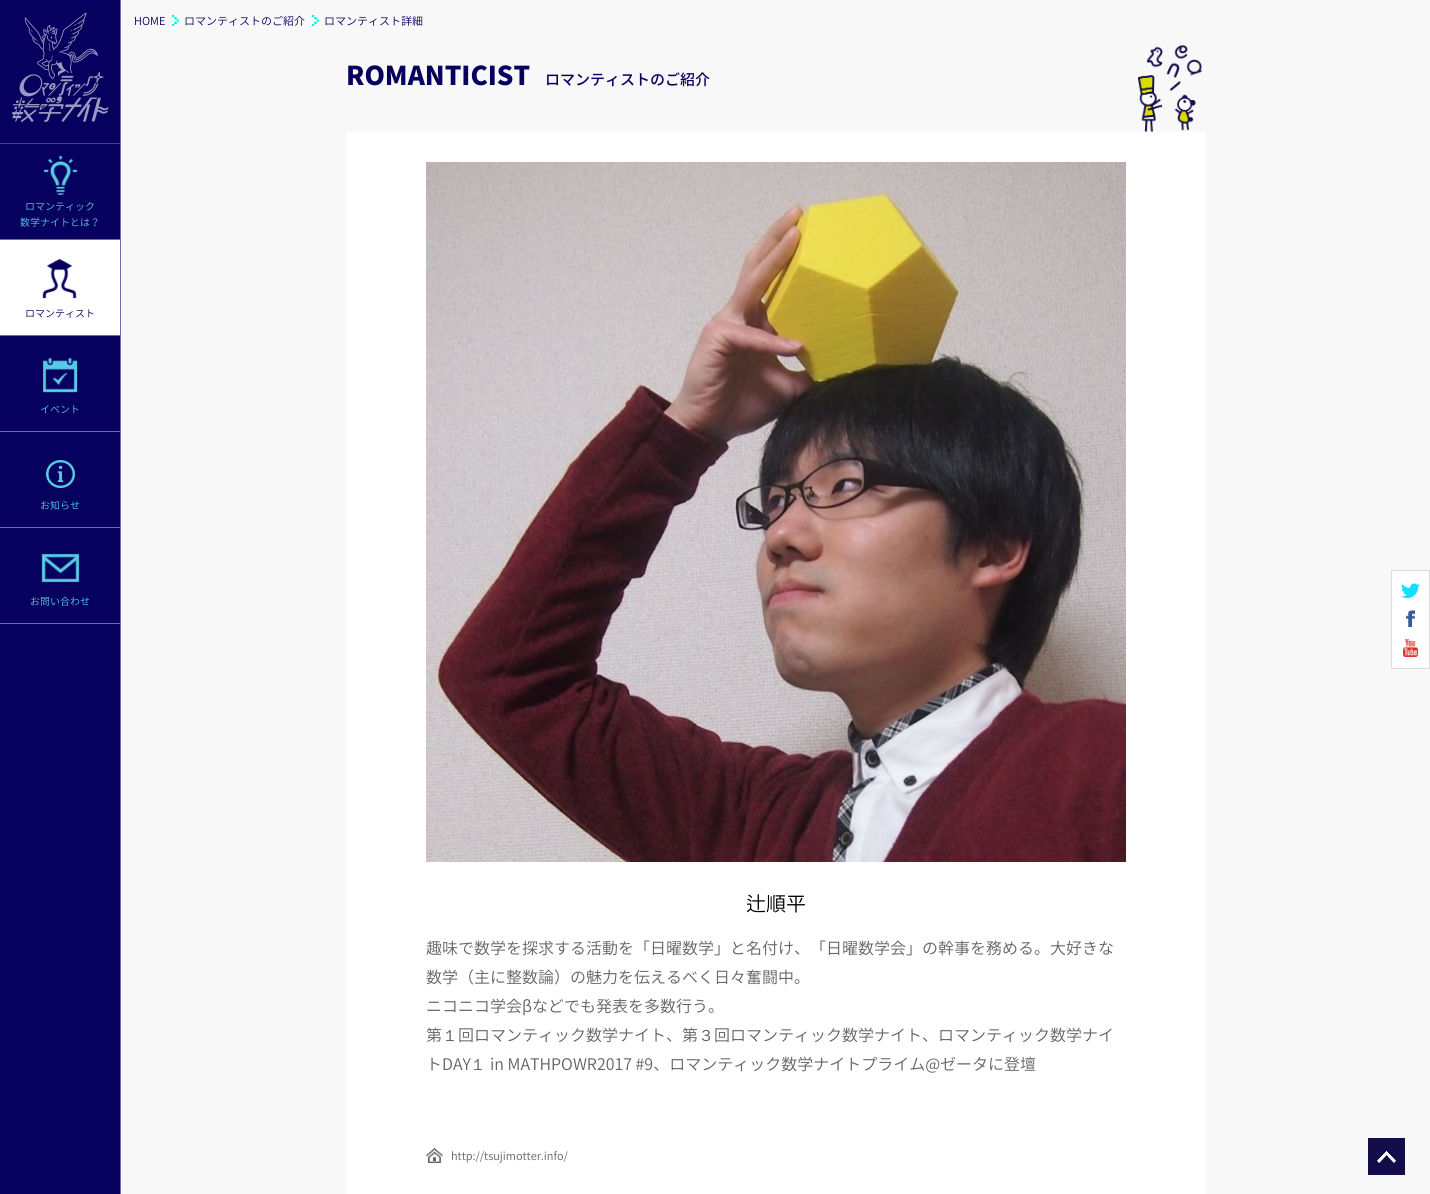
#include <cairo.h>
#include <math.h>
#include <stddef.h>


static void picture(cairo_t *cr, const char *path, double x, double y, double w, double h) {
    cairo_surface_t *image = cairo_image_surface_create_from_png(path);
    cairo_save(cr);
    cairo_set_source_surface(cr, image, x, y);
    cairo_rectangle(cr, x, y, w, h);
    cairo_fill(cr);
    cairo_restore(cr);
    cairo_surface_destroy(image);
}

int main(void) {
    cairo_surface_t *surface = cairo_image_surface_create(CAIRO_FORMAT_RGB24, 1430, 1194);
    cairo_t *cr = cairo_create(surface);
    cairo_font_options_t *options = cairo_font_options_create();
    cairo_font_options_set_hint_metrics(options, CAIRO_HINT_METRICS_OFF);
    cairo_font_options_set_hint_style(options, CAIRO_HINT_STYLE_NONE);
    cairo_set_font_options(cr, options);
    cairo_set_miter_limit(cr, 4);
    cairo_set_source_rgb(cr, 0.969, 0.969, 0.969);
    cairo_paint(cr);
    cairo_set_source_rgb(cr, 0.027, 0, 0.369);
    cairo_rectangle(cr, 0, 0, 120, 1194);
    cairo_fill(cr);
    cairo_set_source_rgb(cr, 0.439, 0.424, 0.647);
    cairo_rectangle(cr, 120, 0, 1, 1194);
    cairo_fill(cr);
    picture(cr, "img1.png", 12, 12, 97, 110);
    cairo_set_source_rgb(cr, 0.275, 0.255, 0.537);
    cairo_rectangle(cr, 0, 143, 120, 1);
    cairo_fill(cr);
    cairo_set_source_rgb(cr, 0.439, 0.424, 0.647);
    cairo_rectangle(cr, 0, 239, 120, 1);
    cairo_fill(cr);
    picture(cr, "img2.png", 43, 155, 35, 40);
    cairo_select_font_face(cr, "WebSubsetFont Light", CAIRO_FONT_SLANT_NORMAL, CAIRO_FONT_WEIGHT_NORMAL);
    cairo_set_font_size(cr, 10);
    cairo_set_source_rgb(cr, 0.349, 0.792, 0.894);
    cairo_move_to(cr, 25, 210);
    cairo_show_text(cr, "ロマンティック");
    cairo_move_to(cr, 20, 226);
    cairo_show_text(cr, "数学ナイトとは？");
    cairo_set_source_rgb(cr, 0.439, 0.424, 0.647);
    cairo_rectangle(cr, 0, 335, 120, 1);
    cairo_fill(cr);
    cairo_set_source_rgb(cr, 1, 1, 1);
    cairo_rectangle(cr, 0, 240, 120, 95);
    cairo_fill(cr);
    picture(cr, "img3.png", 42, 258, 35, 41);
    cairo_set_source_rgb(cr, 0.027, 0, 0.369);
    cairo_move_to(cr, 25, 317);
    cairo_show_text(cr, "ロマンティスト");
    cairo_set_source_rgb(cr, 0.439, 0.424, 0.647);
    cairo_rectangle(cr, 0, 431, 120, 1);
    cairo_fill(cr);
    picture(cr, "img4.png", 43, 357, 35, 36);
    cairo_set_source_rgb(cr, 0.349, 0.792, 0.894);
    cairo_move_to(cr, 40, 413);
    cairo_show_text(cr, "イベント");
    cairo_set_source_rgb(cr, 0.439, 0.424, 0.647);
    cairo_rectangle(cr, 0, 527, 120, 1);
    cairo_fill(cr);
    picture(cr, "img5.png", 45, 460, 30, 28);
    cairo_set_source_rgb(cr, 0.349, 0.792, 0.894);
    cairo_move_to(cr, 40, 509);
    cairo_show_text(cr, "お知らせ");
    cairo_set_source_rgb(cr, 0.439, 0.424, 0.647);
    cairo_rectangle(cr, 0, 623, 120, 1);
    cairo_fill(cr);
    picture(cr, "img6.png", 41, 553, 39, 30);
    cairo_set_source_rgb(cr, 0.349, 0.792, 0.894);
    cairo_move_to(cr, 30, 605);
    cairo_show_text(cr, "お問い合わせ");
    cairo_set_font_size(cr, 11);
    cairo_set_source_rgb(cr, 0.027, 0, 0.369);
    cairo_move_to(cr, 134, 25);
    cairo_show_text(cr, "HOME");
    picture(cr, "img7.png", 172, 15, 7, 11);
    cairo_move_to(cr, 184, 25);
    cairo_show_text(cr, "ロマンティストのご紹介");
    picture(cr, "img7.png", 312, 15, 7, 11);
    cairo_move_to(cr, 324, 25);
    cairo_show_text(cr, "ロマンティスト詳細");
    cairo_select_font_face(cr, "WebSubsetFont Black", CAIRO_FONT_SLANT_NORMAL, CAIRO_FONT_WEIGHT_NORMAL);
    cairo_set_font_size(cr, 26);
    cairo_move_to(cr, 346, 85);
    cairo_show_text(cr, "ROMANTICIST");
    cairo_select_font_face(cr, "WebSubsetFont Medium", CAIRO_FONT_SLANT_NORMAL, CAIRO_FONT_WEIGHT_NORMAL);
    cairo_set_font_size(cr, 15);
    cairo_move_to(cr, 545, 85);
    cairo_show_text(cr, "ロマンティストのご紹介");
    cairo_set_source_rgb(cr, 1, 1, 1);
    cairo_rectangle(cr, 1391.5, 570.5, 38, 98);
    cairo_fill_preserve(cr);
    cairo_set_source_rgb(cr, 0.863, 0.863, 0.863);
    cairo_set_line_width(cr, 1);
    cairo_stroke(cr);
    picture(cr, "img8.png", 1401, 583, 19, 16);
    picture(cr, "img9.png", 1406, 610, 9, 18);
    picture(cr, "img10.png", 1403, 639, 15, 18);
    cairo_set_source_rgb(cr, 1, 1, 1);
    cairo_rectangle(cr, 346, 132, 860, 1062);
    cairo_fill(cr);
    picture(cr, "img11.png", 1138, 45, 64, 87);
    picture(cr, "img12.png", 426, 162, 700, 700);
    cairo_select_font_face(cr, "WebSubsetFont Light", CAIRO_FONT_SLANT_NORMAL, CAIRO_FONT_WEIGHT_NORMAL);
    cairo_set_font_size(cr, 20);
    cairo_set_source_rgb(cr, 0, 0, 0);
    cairo_move_to(cr, 746, 911);
    cairo_show_text(cr, "辻順平");
    cairo_set_font_size(cr, 16);
    cairo_set_source_rgb(cr, 0.388, 0.388, 0.388);
    cairo_move_to(cr, 426, 954);
    cairo_show_text(cr, "趣味で数学を探求する活動を「日曜数学」と名付け、「日曜数学会」の幹事を務める。大好きな");
    cairo_move_to(cr, 426, 983);
    cairo_show_text(cr, "数学（主に整数論）の魅力を伝えるべく日々奮闘中。");
    cairo_move_to(cr, 426, 1012);
    cairo_show_text(cr, "ニコニコ学会βなどでも発表を多数行う。");
    cairo_move_to(cr, 426, 1041);
    cairo_show_text(cr, "第");
    cairo_select_font_face(cr, "WenQuanYi Zen Hei Medium", CAIRO_FONT_SLANT_NORMAL, CAIRO_FONT_WEIGHT_NORMAL);
    cairo_move_to(cr, 442, 1041);
    cairo_show_text(cr, "１");
    cairo_select_font_face(cr, "WebSubsetFont Light", CAIRO_FONT_SLANT_NORMAL, CAIRO_FONT_WEIGHT_NORMAL);
    cairo_move_to(cr, 458, 1041);
    cairo_show_text(cr, "回ロマンティック数学ナイト、第");
    cairo_select_font_face(cr, "WenQuanYi Zen Hei Medium", CAIRO_FONT_SLANT_NORMAL, CAIRO_FONT_WEIGHT_NORMAL);
    cairo_move_to(cr, 698, 1041);
    cairo_show_text(cr, "３");
    cairo_select_font_face(cr, "WebSubsetFont Light", CAIRO_FONT_SLANT_NORMAL, CAIRO_FONT_WEIGHT_NORMAL);
    cairo_move_to(cr, 714, 1041);
    cairo_show_text(cr, "回ロマンティック数学ナイト、ロマンティック数学ナイ");
    cairo_move_to(cr, 426, 1070);
    cairo_show_text(cr, "トDAY");
    cairo_select_font_face(cr, "WenQuanYi Zen Hei Medium", CAIRO_FONT_SLANT_NORMAL, CAIRO_FONT_WEIGHT_NORMAL);
    cairo_move_to(cr, 470, 1070);
    cairo_show_text(cr, "１");
    cairo_select_font_face(cr, "WebSubsetFont Light", CAIRO_FONT_SLANT_NORMAL, CAIRO_FONT_WEIGHT_NORMAL);
    cairo_move_to(cr, 490, 1070);
    cairo_show_text(cr, "in MATHPOWR2017 #9、ロマンティック数学ナイトプライム@ゼータに登壇");
    picture(cr, "img13.png", 426, 1148, 17, 15);
    cairo_set_font_size(cr, 11);
    cairo_move_to(cr, 451, 1160);
    cairo_show_text(cr, "http://tsujimotter.info/");
    cairo_set_source_rgb(cr, 0.075, 0.055, 0.294);
    cairo_rectangle(cr, 1368, 1138, 37, 37);
    cairo_fill(cr);
    picture(cr, "img14.png", 1377, 1150, 19, 13);
    cairo_surface_write_to_png(surface, "page.png");
    cairo_font_options_destroy(options);
    cairo_destroy(cr);
    cairo_surface_destroy(surface);
    return 0;
}
